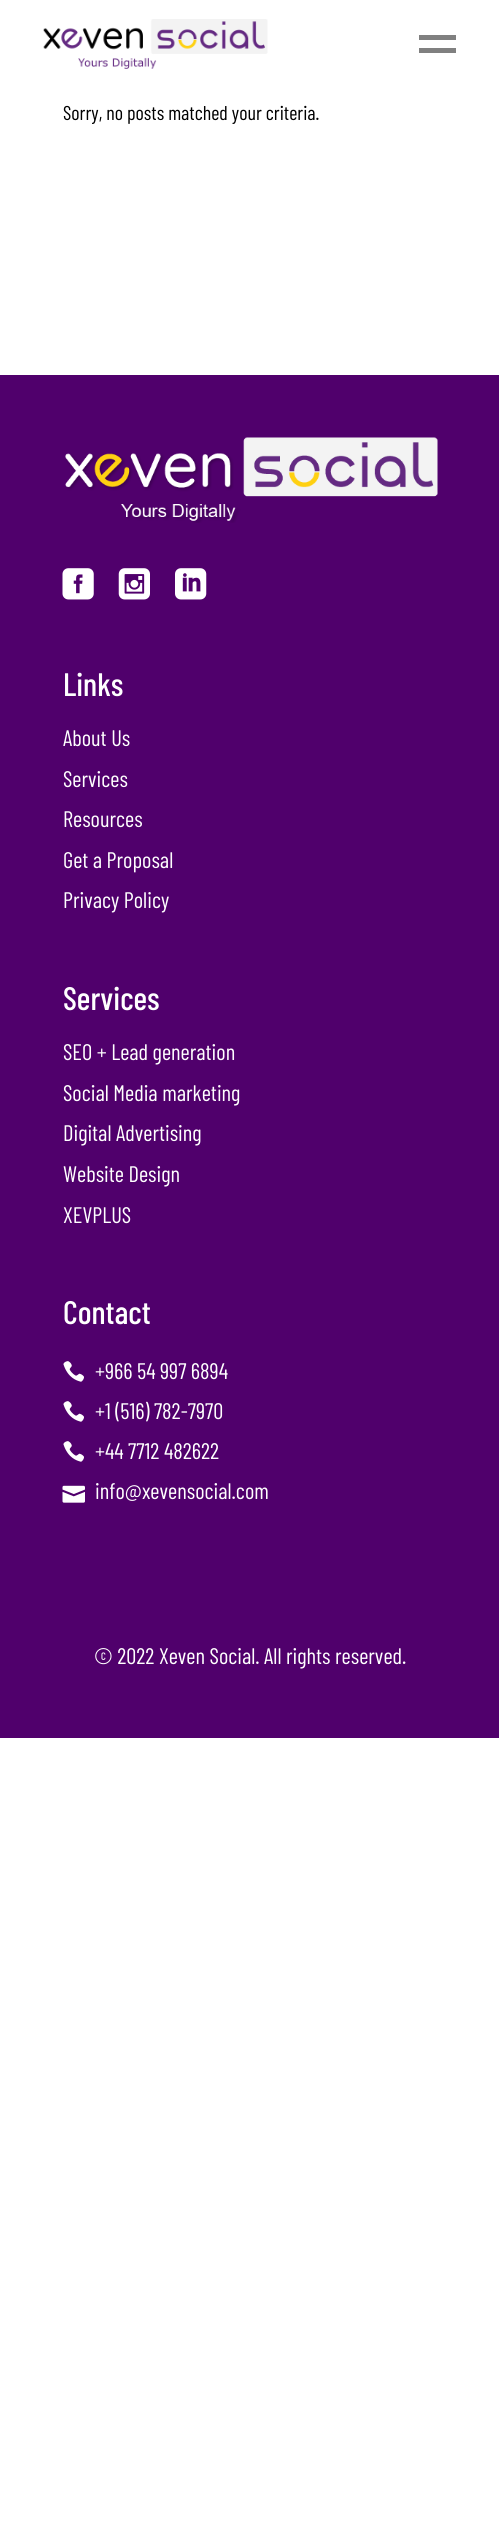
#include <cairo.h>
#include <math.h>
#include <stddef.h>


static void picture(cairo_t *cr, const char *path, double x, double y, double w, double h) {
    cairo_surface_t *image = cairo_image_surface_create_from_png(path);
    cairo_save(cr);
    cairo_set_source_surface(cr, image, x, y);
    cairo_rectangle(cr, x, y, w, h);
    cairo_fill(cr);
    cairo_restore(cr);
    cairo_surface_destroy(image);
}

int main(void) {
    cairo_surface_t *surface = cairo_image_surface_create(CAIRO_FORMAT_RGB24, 499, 2533);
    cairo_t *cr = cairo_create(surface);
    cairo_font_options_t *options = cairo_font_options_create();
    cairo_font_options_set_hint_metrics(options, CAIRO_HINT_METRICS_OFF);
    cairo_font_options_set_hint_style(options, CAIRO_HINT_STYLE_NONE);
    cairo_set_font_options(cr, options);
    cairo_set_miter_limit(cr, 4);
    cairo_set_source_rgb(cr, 1, 1, 1);
    cairo_paint(cr);
    picture(cr, "img1.png", 43, 19, 225, 50);
    cairo_set_source_rgb(cr, 0.502, 0.502, 0.502);
    cairo_rectangle(cr, 419, 35, 37, 5);
    cairo_fill(cr);
    cairo_rectangle(cr, 419, 48, 37, 5);
    cairo_fill(cr);
    cairo_select_font_face(cr, "Barlow Condensed", CAIRO_FONT_SLANT_NORMAL, CAIRO_FONT_WEIGHT_NORMAL);
    cairo_set_font_size(cr, 20);
    cairo_set_source_rgb(cr, 0, 0, 0);
    cairo_move_to(cr, 63, 120);
    cairo_show_text(cr, "Sorry, no posts matched your criteria.");
    cairo_set_source_rgb(cr, 0.314, 0, 0.424);
    cairo_rectangle(cr, 0, 375, 499, 1363);
    cairo_fill(cr);
    picture(cr, "img2.png", 65, 437, 373, 86);
    picture(cr, "img3.png", 62, 568, 32, 32);
    picture(cr, "img4.png", 118, 568, 32, 32);
    picture(cr, "img5.png", 175, 568, 32, 32);
    cairo_select_font_face(cr, "Barlow Condensed Medium", CAIRO_FONT_SLANT_NORMAL, CAIRO_FONT_WEIGHT_NORMAL);
    cairo_set_font_size(cr, 32.5);
    cairo_set_source_rgb(cr, 1, 1, 1);
    cairo_move_to(cr, 63, 696);
    cairo_show_text(cr, "Links");
    cairo_select_font_face(cr, "Barlow Condensed", CAIRO_FONT_SLANT_NORMAL, CAIRO_FONT_WEIGHT_NORMAL);
    cairo_set_font_size(cr, 22.5);
    cairo_move_to(cr, 63, 746);
    cairo_show_text(cr, "About Us");
    cairo_move_to(cr, 63, 787);
    cairo_show_text(cr, "Services");
    cairo_move_to(cr, 63, 827);
    cairo_show_text(cr, "Resources");
    cairo_move_to(cr, 63, 868);
    cairo_show_text(cr, "Get a Proposal");
    cairo_move_to(cr, 63, 908);
    cairo_show_text(cr, "Privacy Policy");
    cairo_select_font_face(cr, "Barlow Condensed Medium", CAIRO_FONT_SLANT_NORMAL, CAIRO_FONT_WEIGHT_NORMAL);
    cairo_set_font_size(cr, 32.5);
    cairo_move_to(cr, 63, 1010);
    cairo_show_text(cr, "Services");
    cairo_select_font_face(cr, "Barlow Condensed", CAIRO_FONT_SLANT_NORMAL, CAIRO_FONT_WEIGHT_NORMAL);
    cairo_set_font_size(cr, 22.5);
    cairo_move_to(cr, 63, 1060);
    cairo_show_text(cr, "SEO + Lead generation");
    cairo_move_to(cr, 63, 1101);
    cairo_show_text(cr, "Social Media marketing");
    cairo_move_to(cr, 63, 1141);
    cairo_show_text(cr, "Digital Advertising");
    cairo_move_to(cr, 63, 1182);
    cairo_show_text(cr, "Website Design");
    cairo_move_to(cr, 63, 1223);
    cairo_show_text(cr, "XEVPLUS");
    cairo_select_font_face(cr, "Barlow Condensed Medium", CAIRO_FONT_SLANT_NORMAL, CAIRO_FONT_WEIGHT_NORMAL);
    cairo_set_font_size(cr, 32.5);
    cairo_move_to(cr, 63, 1324);
    cairo_show_text(cr, "Contact");
    picture(cr, "img6.png", 63, 1361, 21, 21);
    cairo_select_font_face(cr, "Barlow Condensed", CAIRO_FONT_SLANT_NORMAL, CAIRO_FONT_WEIGHT_NORMAL);
    cairo_set_font_size(cr, 22.5);
    cairo_move_to(cr, 95, 1379);
    cairo_show_text(cr, "+966 54 997 6894");
    picture(cr, "img6.png", 63, 1401, 21, 21);
    cairo_move_to(cr, 95, 1419);
    cairo_show_text(cr, "+1 (516) 782-7970");
    picture(cr, "img6.png", 63, 1441, 21, 21);
    cairo_move_to(cr, 95, 1459);
    cairo_show_text(cr, "+44 7712 482622");
    picture(cr, "img7.png", 62, 1485, 23, 18);
    cairo_move_to(cr, 95, 1499);
    cairo_show_text(cr, "info@xevensocial.com");
    cairo_move_to(cr, 94, 1664);
    cairo_show_text(cr, "© 2022 Xeven Social. All rights reserved.");
    cairo_surface_write_to_png(surface, "page.png");
    cairo_font_options_destroy(options);
    cairo_destroy(cr);
    cairo_surface_destroy(surface);
    return 0;
}
